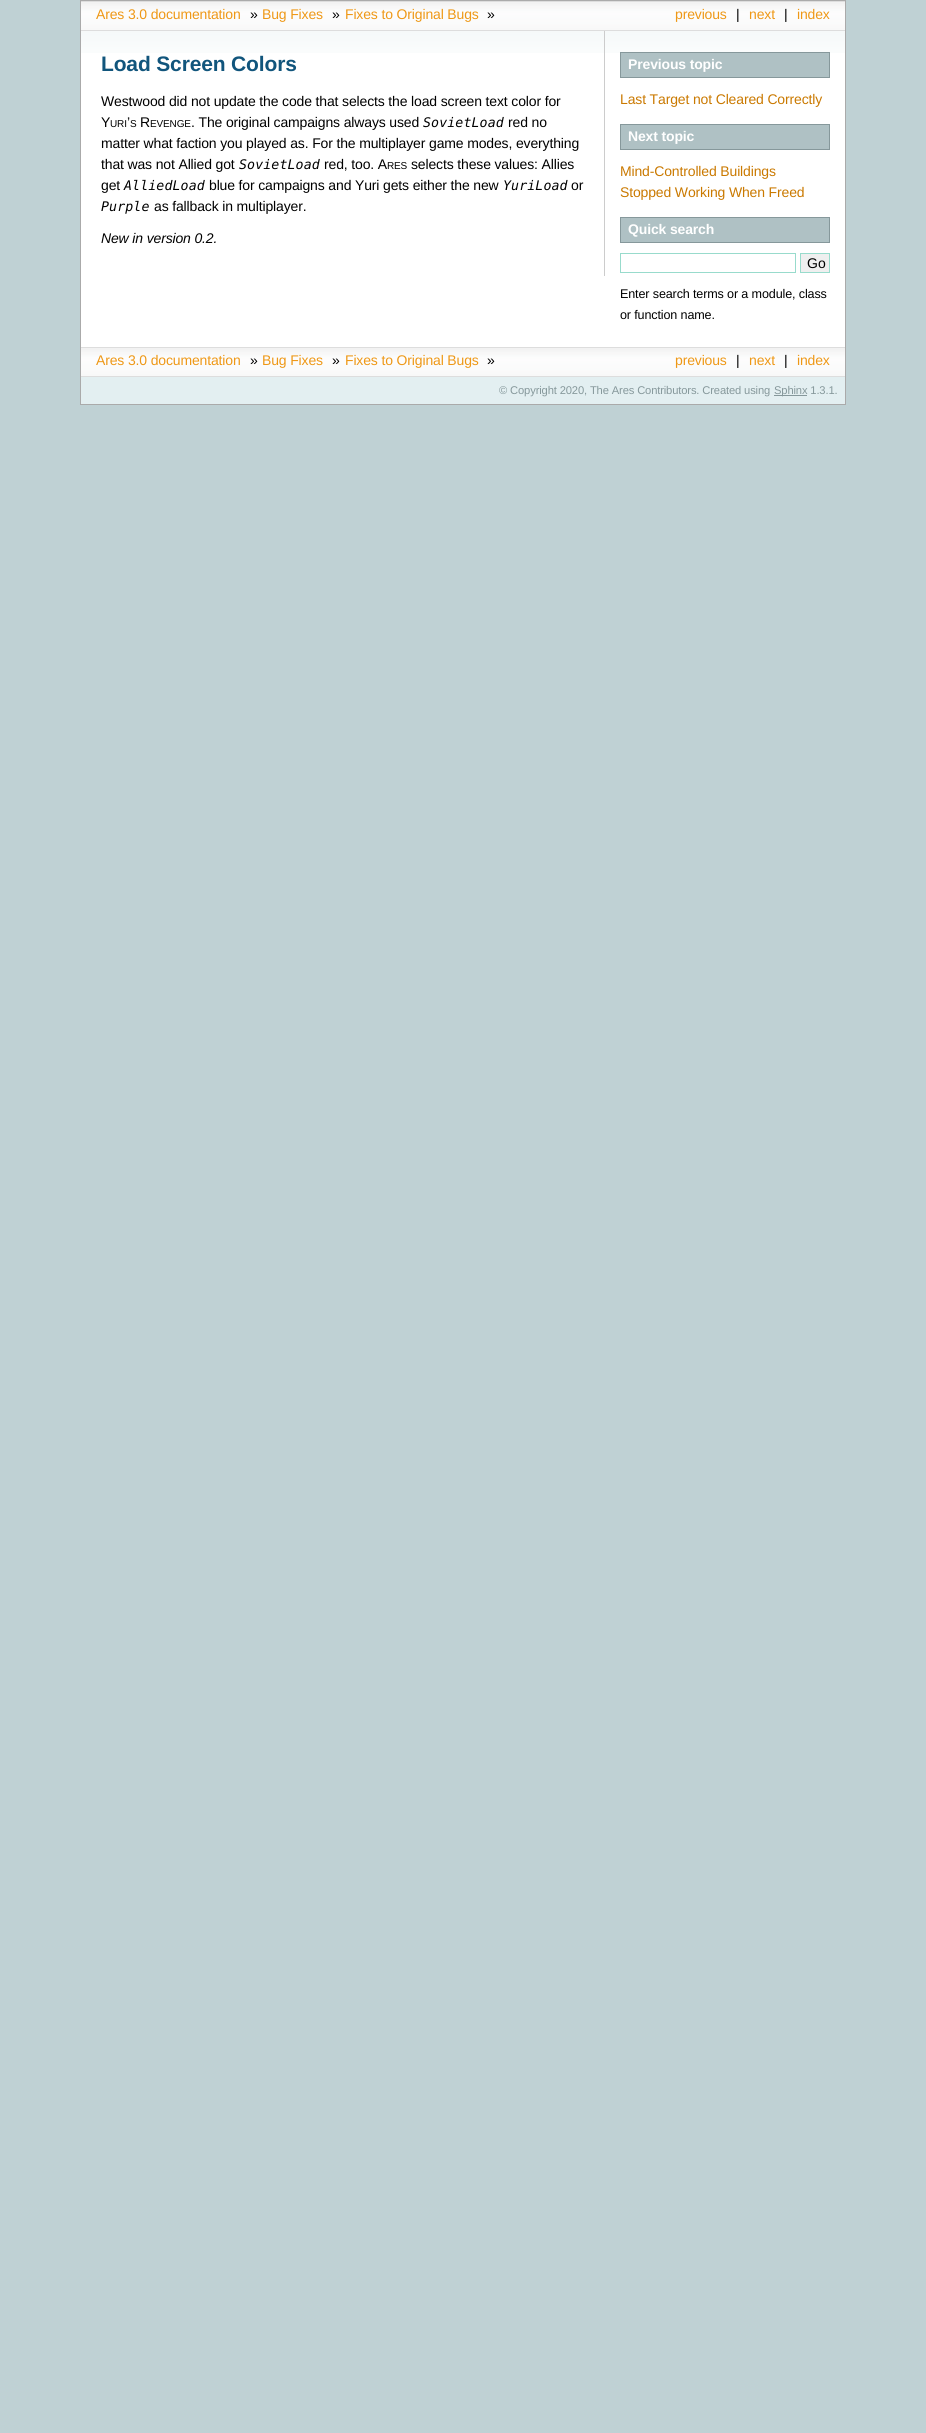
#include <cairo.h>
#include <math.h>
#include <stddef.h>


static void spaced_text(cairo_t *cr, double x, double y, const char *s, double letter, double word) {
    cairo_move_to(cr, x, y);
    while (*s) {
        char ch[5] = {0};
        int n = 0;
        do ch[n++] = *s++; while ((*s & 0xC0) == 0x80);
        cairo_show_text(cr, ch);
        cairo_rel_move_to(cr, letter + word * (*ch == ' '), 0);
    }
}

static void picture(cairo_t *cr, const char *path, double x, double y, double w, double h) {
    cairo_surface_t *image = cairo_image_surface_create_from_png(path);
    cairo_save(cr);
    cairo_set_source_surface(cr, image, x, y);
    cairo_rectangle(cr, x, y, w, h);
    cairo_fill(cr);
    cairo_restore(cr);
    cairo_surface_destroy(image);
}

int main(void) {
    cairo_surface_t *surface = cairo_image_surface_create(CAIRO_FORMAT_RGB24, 926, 2433);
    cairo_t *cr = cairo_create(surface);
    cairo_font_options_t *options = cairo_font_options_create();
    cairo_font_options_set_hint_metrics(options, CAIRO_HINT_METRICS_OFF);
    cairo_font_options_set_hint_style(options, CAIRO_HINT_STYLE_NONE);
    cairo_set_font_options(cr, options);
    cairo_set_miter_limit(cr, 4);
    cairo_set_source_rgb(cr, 0.749, 0.82, 0.831);
    cairo_paint(cr);
    cairo_rectangle(cr, 80.5, 0.5, 765, 404);
    cairo_set_source_rgb(cr, 0.667, 0.667, 0.667);
    cairo_set_line_width(cr, 1);
    cairo_stroke(cr);
    picture(cr, "img1.png", 81, 2, 764, 28);
    cairo_set_source_rgb(cr, 0.867, 0.867, 0.867);
    cairo_rectangle(cr, 81, 1, 764, 1);
    cairo_fill(cr);
    cairo_rectangle(cr, 81, 30, 764, 1);
    cairo_fill(cr);
    cairo_select_font_face(cr, "Liberation Sans", CAIRO_FONT_SLANT_NORMAL, CAIRO_FONT_WEIGHT_NORMAL);
    cairo_set_font_size(cr, 14);
    cairo_set_source_rgb(cr, 0.933, 0.596, 0.086);
    spaced_text(cr, 96, 19, "Ares 3.0 documentation", -0.15, 0);
    cairo_set_source_rgb(cr, 0, 0, 0);
    spaced_text(cr, 250, 19, "»", -0.15, 0);
    cairo_set_source_rgb(cr, 0.933, 0.596, 0.086);
    spaced_text(cr, 262, 19, "Bug Fixes", -0.15, 0);
    cairo_set_source_rgb(cr, 0, 0, 0);
    spaced_text(cr, 332, 19, "»", -0.15, 0);
    cairo_set_source_rgb(cr, 0.933, 0.596, 0.086);
    spaced_text(cr, 345, 19, "Fixes to Original Bugs", -0.15, 0);
    cairo_set_source_rgb(cr, 0, 0, 0);
    spaced_text(cr, 487, 19, "»", -0.15, 0);
    cairo_set_source_rgb(cr, 0.933, 0.596, 0.086);
    spaced_text(cr, 675, 19, "previous", -0.15, 0);
    cairo_set_source_rgb(cr, 0, 0, 0);
    spaced_text(cr, 736, 19, "|", -0.15, 0);
    cairo_set_source_rgb(cr, 0.933, 0.596, 0.086);
    spaced_text(cr, 749, 19, "next", -0.15, 0);
    cairo_set_source_rgb(cr, 0, 0, 0);
    spaced_text(cr, 784, 19, "|", -0.15, 0);
    cairo_set_source_rgb(cr, 0.933, 0.596, 0.086);
    spaced_text(cr, 797, 19, "index", -0.15, 0);
    cairo_set_source_rgb(cr, 1, 1, 1);
    cairo_rectangle(cr, 81, 53, 764, 294);
    cairo_fill(cr);
    picture(cr, "img2.png", 81, 31, 764, 22);
    cairo_set_source_rgb(cr, 0.8, 0.8, 0.8);
    cairo_rectangle(cr, 604, 31, 1, 245);
    cairo_fill(cr);
    cairo_select_font_face(cr, "Liberation Sans", CAIRO_FONT_SLANT_NORMAL, CAIRO_FONT_WEIGHT_BOLD);
    cairo_set_font_size(cr, 21);
    cairo_set_source_rgb(cr, 0.067, 0.333, 0.486);
    spaced_text(cr, 101, 71, "Load Screen Colors", -0.15, 0);
    cairo_select_font_face(cr, "Liberation Sans", CAIRO_FONT_SLANT_NORMAL, CAIRO_FONT_WEIGHT_NORMAL);
    cairo_set_font_size(cr, 14);
    cairo_set_source_rgb(cr, 0, 0, 0);
    spaced_text(cr, 101, 106, "Westwood did not update the code that selects the load screen text color for", -0.15, 0);
    spaced_text(cr, 101, 127, "Y", -0.15, 0);
    cairo_set_font_size(cr, 10);
    spaced_text(cr, 110, 127, "URI", -0.15, 0);
    cairo_set_font_size(cr, 14);
    spaced_text(cr, 127, 127, "’", -0.15, 0);
    cairo_set_font_size(cr, 10);
    spaced_text(cr, 130, 127, "S", -0.15, 0);
    cairo_set_font_size(cr, 14);
    spaced_text(cr, 140, 127, "R", -0.15, 0);
    cairo_set_font_size(cr, 10);
    spaced_text(cr, 150, 127, "EVENGE", -0.15, 0);
    cairo_set_font_size(cr, 14);
    spaced_text(cr, 191, 127, ". The original campaigns always used", -0.15, 0);
    cairo_select_font_face(cr, "DejaVu Sans Mono", CAIRO_FONT_SLANT_ITALIC, CAIRO_FONT_WEIGHT_NORMAL);
    cairo_set_font_size(cr, 13.25);
    spaced_text(cr, 423, 127, "SovietLoad", 0.1, 0);
    cairo_select_font_face(cr, "Liberation Sans", CAIRO_FONT_SLANT_NORMAL, CAIRO_FONT_WEIGHT_NORMAL);
    cairo_set_font_size(cr, 14);
    spaced_text(cr, 508, 127, "red no", -0.15, 0);
    spaced_text(cr, 101, 148, "matter what faction you played as. For the multiplayer game modes, everything", -0.15, 0);
    spaced_text(cr, 101, 169, "that was not Allied got", -0.15, 0);
    cairo_select_font_face(cr, "DejaVu Sans Mono", CAIRO_FONT_SLANT_ITALIC, CAIRO_FONT_WEIGHT_NORMAL);
    cairo_set_font_size(cr, 13.25);
    spaced_text(cr, 239, 169, "SovietLoad", 0.1, 0);
    cairo_select_font_face(cr, "Liberation Sans", CAIRO_FONT_SLANT_NORMAL, CAIRO_FONT_WEIGHT_NORMAL);
    cairo_set_font_size(cr, 14);
    spaced_text(cr, 324, 169, "red, too. A", -0.15, 0);
    cairo_set_font_size(cr, 10);
    spaced_text(cr, 387, 169, "RES", -0.15, 0);
    cairo_set_font_size(cr, 14);
    spaced_text(cr, 411, 169, "selects these values: Allies", -0.15, 0);
    spaced_text(cr, 101, 190, "get", -0.15, 0);
    cairo_select_font_face(cr, "DejaVu Sans Mono", CAIRO_FONT_SLANT_ITALIC, CAIRO_FONT_WEIGHT_NORMAL);
    cairo_set_font_size(cr, 13.25);
    spaced_text(cr, 124, 190, "AlliedLoad", 0.1, 0);
    cairo_select_font_face(cr, "Liberation Sans", CAIRO_FONT_SLANT_NORMAL, CAIRO_FONT_WEIGHT_NORMAL);
    cairo_set_font_size(cr, 14);
    spaced_text(cr, 209, 190, "blue for campaigns and Yuri gets either the new", -0.15, 0);
    cairo_select_font_face(cr, "DejaVu Sans Mono", CAIRO_FONT_SLANT_ITALIC, CAIRO_FONT_WEIGHT_NORMAL);
    cairo_set_font_size(cr, 13.25);
    spaced_text(cr, 503, 190, "YuriLoad", 0.1, 0);
    cairo_select_font_face(cr, "Liberation Sans", CAIRO_FONT_SLANT_NORMAL, CAIRO_FONT_WEIGHT_NORMAL);
    cairo_set_font_size(cr, 14);
    spaced_text(cr, 571, 190, "or", -0.15, 0);
    cairo_select_font_face(cr, "DejaVu Sans Mono", CAIRO_FONT_SLANT_ITALIC, CAIRO_FONT_WEIGHT_NORMAL);
    cairo_set_font_size(cr, 13.25);
    spaced_text(cr, 101, 211, "Purple", 0.1, 0);
    cairo_select_font_face(cr, "Liberation Sans", CAIRO_FONT_SLANT_NORMAL, CAIRO_FONT_WEIGHT_NORMAL);
    cairo_set_font_size(cr, 14);
    spaced_text(cr, 154, 211, "as fallback in multiplayer.", -0.15, 0);
    cairo_select_font_face(cr, "Liberation Sans", CAIRO_FONT_SLANT_ITALIC, CAIRO_FONT_WEIGHT_NORMAL);
    spaced_text(cr, 101, 243, "New in version 0.2.", -0.15, 0);
    cairo_set_source_rgb(cr, 0.686, 0.757, 0.769);
    cairo_rectangle(cr, 620.5, 52.5, 209, 25);
    cairo_fill_preserve(cr);
    cairo_set_source_rgb(cr, 0.525, 0.596, 0.608);
    cairo_stroke(cr);
    cairo_select_font_face(cr, "Liberation Sans", CAIRO_FONT_SLANT_NORMAL, CAIRO_FONT_WEIGHT_BOLD);
    cairo_set_source_rgb(cr, 1, 1, 1);
    spaced_text(cr, 628, 69, "Previous topic", -0.15, 0);
    cairo_select_font_face(cr, "Liberation Sans", CAIRO_FONT_SLANT_NORMAL, CAIRO_FONT_WEIGHT_NORMAL);
    cairo_set_source_rgb(cr, 0.792, 0.475, 0);
    spaced_text(cr, 620, 104, "Last Target not Cleared Correctly", -0.15, 0);
    cairo_set_source_rgb(cr, 0.686, 0.757, 0.769);
    cairo_rectangle(cr, 620.5, 124.5, 209, 25);
    cairo_fill_preserve(cr);
    cairo_set_source_rgb(cr, 0.525, 0.596, 0.608);
    cairo_stroke(cr);
    cairo_select_font_face(cr, "Liberation Sans", CAIRO_FONT_SLANT_NORMAL, CAIRO_FONT_WEIGHT_BOLD);
    cairo_set_source_rgb(cr, 1, 1, 1);
    spaced_text(cr, 628, 141, "Next topic", -0.15, 0);
    cairo_select_font_face(cr, "Liberation Sans", CAIRO_FONT_SLANT_NORMAL, CAIRO_FONT_WEIGHT_NORMAL);
    cairo_set_source_rgb(cr, 0.792, 0.475, 0);
    spaced_text(cr, 620, 176, "Mind-Controlled Buildings", -0.15, 0);
    spaced_text(cr, 620, 197, "Stopped Working When Freed", -0.15, 0);
    cairo_set_source_rgb(cr, 0.686, 0.757, 0.769);
    cairo_rectangle(cr, 620.5, 217.5, 209, 25);
    cairo_fill_preserve(cr);
    cairo_set_source_rgb(cr, 0.525, 0.596, 0.608);
    cairo_stroke(cr);
    cairo_select_font_face(cr, "Liberation Sans", CAIRO_FONT_SLANT_NORMAL, CAIRO_FONT_WEIGHT_BOLD);
    cairo_set_source_rgb(cr, 1, 1, 1);
    spaced_text(cr, 628, 234, "Quick search", -0.15, 0);
    cairo_rectangle(cr, 620.5, 253.5, 175, 19);
    cairo_set_source_rgb(cr, 0.596, 0.859, 0.8);
    cairo_stroke(cr);
    cairo_set_source_rgb(cr, 0.937, 0.937, 0.937);
    cairo_rectangle(cr, 800.5, 253.5, 29, 19);
    cairo_fill_preserve(cr);
    cairo_set_source_rgb(cr, 0.596, 0.859, 0.8);
    cairo_stroke(cr);
    cairo_select_font_face(cr, "Liberation Sans", CAIRO_FONT_SLANT_NORMAL, CAIRO_FONT_WEIGHT_NORMAL);
    cairo_set_source_rgb(cr, 0, 0, 0);
    cairo_move_to(cr, 807, 268);
    cairo_show_text(cr, "Go");
    cairo_set_font_size(cr, 12.6);
    spaced_text(cr, 620, 298, "Enter search terms or a module, class", -0.15, 0);
    spaced_text(cr, 620, 319, "or function name.", -0.15, 0);
    picture(cr, "img1.png", 81, 348, 764, 28);
    cairo_set_source_rgb(cr, 0.867, 0.867, 0.867);
    cairo_rectangle(cr, 81, 347, 764, 1);
    cairo_fill(cr);
    cairo_rectangle(cr, 81, 376, 764, 1);
    cairo_fill(cr);
    cairo_set_font_size(cr, 14);
    cairo_set_source_rgb(cr, 0.933, 0.596, 0.086);
    spaced_text(cr, 96, 365, "Ares 3.0 documentation", -0.15, 0);
    cairo_set_source_rgb(cr, 0, 0, 0);
    spaced_text(cr, 250, 365, "»", -0.15, 0);
    cairo_set_source_rgb(cr, 0.933, 0.596, 0.086);
    spaced_text(cr, 262, 365, "Bug Fixes", -0.15, 0);
    cairo_set_source_rgb(cr, 0, 0, 0);
    spaced_text(cr, 332, 365, "»", -0.15, 0);
    cairo_set_source_rgb(cr, 0.933, 0.596, 0.086);
    spaced_text(cr, 345, 365, "Fixes to Original Bugs", -0.15, 0);
    cairo_set_source_rgb(cr, 0, 0, 0);
    spaced_text(cr, 487, 365, "»", -0.15, 0);
    cairo_set_source_rgb(cr, 0.933, 0.596, 0.086);
    spaced_text(cr, 675, 365, "previous", -0.15, 0);
    cairo_set_source_rgb(cr, 0, 0, 0);
    spaced_text(cr, 736, 365, "|", -0.15, 0);
    cairo_set_source_rgb(cr, 0.933, 0.596, 0.086);
    spaced_text(cr, 749, 365, "next", -0.15, 0);
    cairo_set_source_rgb(cr, 0, 0, 0);
    spaced_text(cr, 784, 365, "|", -0.15, 0);
    cairo_set_source_rgb(cr, 0.933, 0.596, 0.086);
    spaced_text(cr, 797, 365, "index", -0.15, 0);
    cairo_set_source_rgb(cr, 0.89, 0.937, 0.945);
    cairo_rectangle(cr, 81, 377, 764, 27);
    cairo_fill(cr);
    cairo_set_font_size(cr, 11.2);
    cairo_set_source_rgb(cr, 0.525, 0.596, 0.608);
    spaced_text(cr, 499, 394, "© Copyright 2020, The Ares Contributors. Created using", -0.15, 0);
    cairo_rectangle(cr, 774, 395, 33, 1);
    cairo_fill(cr);
    spaced_text(cr, 774, 394, "Sphinx 1.3.1.", -0.15, 0);
    cairo_surface_write_to_png(surface, "page.png");
    cairo_font_options_destroy(options);
    cairo_destroy(cr);
    cairo_surface_destroy(surface);
    return 0;
}
